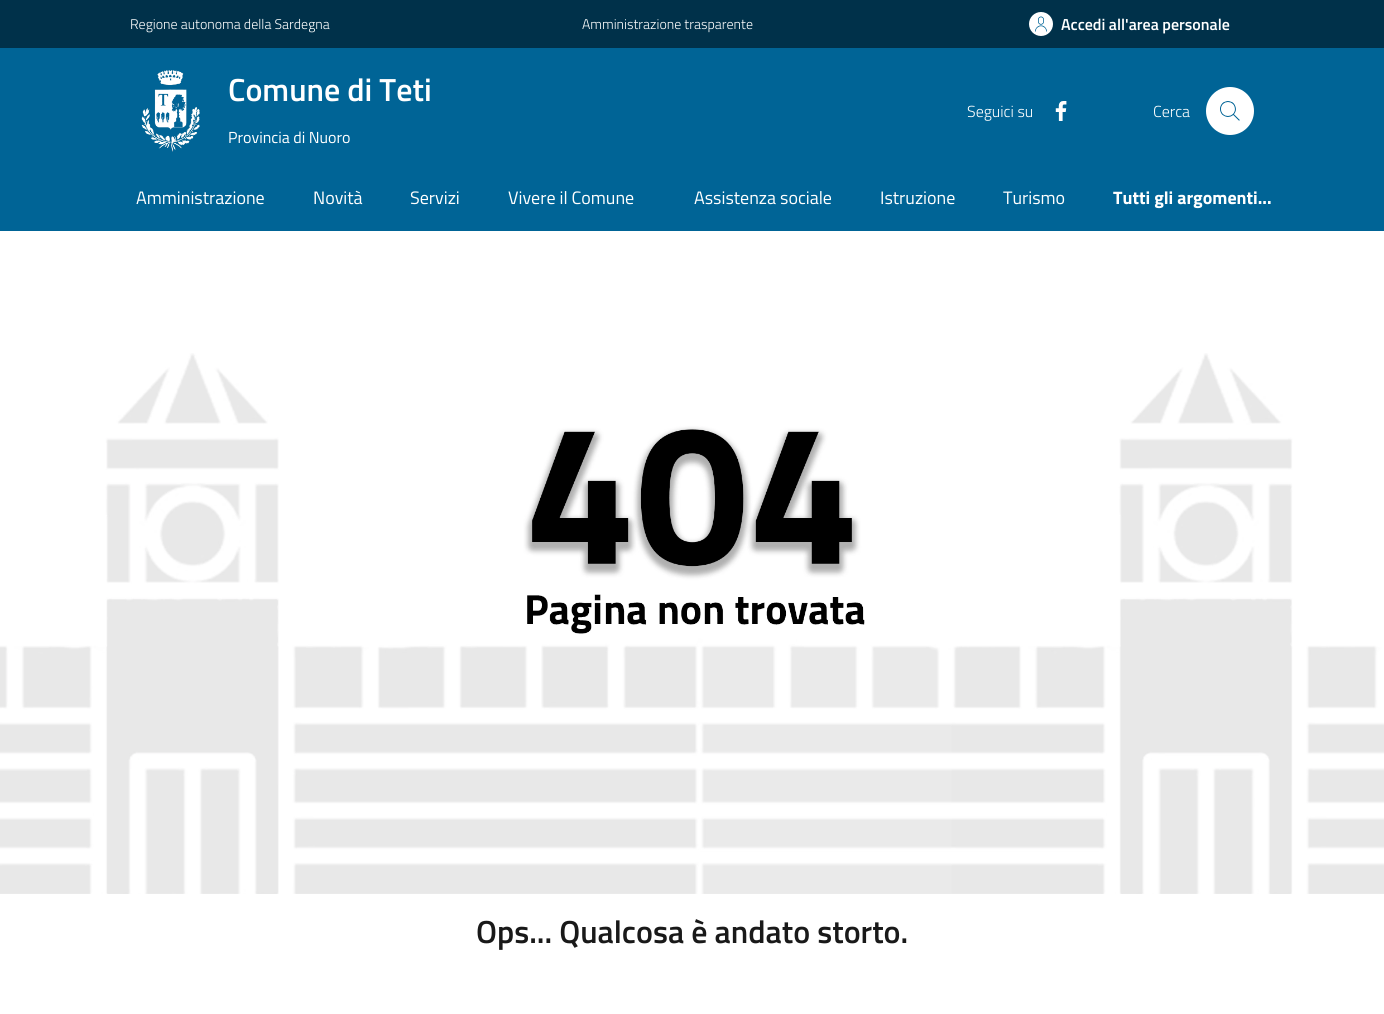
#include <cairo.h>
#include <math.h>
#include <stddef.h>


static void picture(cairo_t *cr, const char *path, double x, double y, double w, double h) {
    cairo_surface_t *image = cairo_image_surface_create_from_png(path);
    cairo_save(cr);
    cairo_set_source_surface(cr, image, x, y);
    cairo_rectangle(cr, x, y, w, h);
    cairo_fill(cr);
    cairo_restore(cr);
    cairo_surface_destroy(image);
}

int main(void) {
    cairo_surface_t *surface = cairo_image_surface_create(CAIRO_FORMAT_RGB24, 1384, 1014);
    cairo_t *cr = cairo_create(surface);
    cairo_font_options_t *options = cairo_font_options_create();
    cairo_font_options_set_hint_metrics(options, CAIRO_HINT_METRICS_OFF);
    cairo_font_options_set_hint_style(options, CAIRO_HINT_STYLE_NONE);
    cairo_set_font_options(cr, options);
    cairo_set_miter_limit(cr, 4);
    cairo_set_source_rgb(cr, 1, 1, 1);
    cairo_paint(cr);
    cairo_set_source_rgb(cr, 0, 0.192, 0.29);
    cairo_rectangle(cr, 0, 0, 1384, 48);
    cairo_fill(cr);
    cairo_select_font_face(cr, "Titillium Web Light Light", CAIRO_FONT_SLANT_NORMAL, CAIRO_FONT_WEIGHT_NORMAL);
    cairo_set_font_size(cr, 14);
    cairo_set_source_rgb(cr, 1, 1, 1);
    cairo_move_to(cr, 130, 29);
    cairo_show_text(cr, "Regione autonoma della Sardegna");
    cairo_move_to(cr, 582, 29);
    cairo_show_text(cr, "Amministrazione trasparente");
    cairo_new_path(cr);
    cairo_arc(cr, 1041, 24, 12, 0, 2 * M_PI);
    cairo_fill(cr);
    picture(cr, "img1.png", 1035, 16, 12, 16);
    cairo_select_font_face(cr, "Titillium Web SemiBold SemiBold", CAIRO_FONT_SLANT_NORMAL, CAIRO_FONT_WEIGHT_NORMAL);
    cairo_set_font_size(cr, 16);
    cairo_move_to(cr, 1061, 30);
    cairo_show_text(cr, "Accedi all'area personale");
    cairo_set_source_rgb(cr, 0, 0.392, 0.588);
    cairo_rectangle(cr, 0, 48, 1384, 183);
    cairo_fill(cr);
    picture(cr, "img2.png", 141, 70, 59, 82);
    cairo_set_font_size(cr, 32);
    cairo_set_source_rgb(cr, 1, 1, 1);
    cairo_move_to(cr, 228, 101);
    cairo_show_text(cr, "Comune di Teti");
    cairo_select_font_face(cr, "Titillium Web", CAIRO_FONT_SLANT_NORMAL, CAIRO_FONT_WEIGHT_NORMAL);
    cairo_set_font_size(cr, 16);
    cairo_move_to(cr, 228, 143);
    cairo_show_text(cr, "Provincia di Nuoro");
    cairo_select_font_face(cr, "Titillium Web Light Light", CAIRO_FONT_SLANT_NORMAL, CAIRO_FONT_WEIGHT_NORMAL);
    cairo_move_to(cr, 967, 117);
    cairo_show_text(cr, "Seguici su");
    picture(cr, "img3.png", 1055, 101, 12, 20);
    cairo_move_to(cr, 1153, 117);
    cairo_show_text(cr, "Cerca");
    cairo_new_path(cr);
    cairo_arc(cr, 1230, 111, 24, 0, 2 * M_PI);
    cairo_fill(cr);
    picture(cr, "img4.png", 1220, 101, 20, 20);
    cairo_select_font_face(cr, "Titillium Web", CAIRO_FONT_SLANT_NORMAL, CAIRO_FONT_WEIGHT_NORMAL);
    cairo_set_font_size(cr, 18);
    cairo_move_to(cr, 136, 204);
    cairo_show_text(cr, "Amministrazione");
    cairo_move_to(cr, 313, 204);
    cairo_show_text(cr, "Novità");
    cairo_move_to(cr, 410, 204);
    cairo_show_text(cr, "Servizi");
    cairo_move_to(cr, 508, 204);
    cairo_show_text(cr, "Vivere il Comune");
    cairo_move_to(cr, 694, 204);
    cairo_show_text(cr, "Assistenza sociale");
    cairo_move_to(cr, 880, 204);
    cairo_show_text(cr, "Istruzione");
    cairo_move_to(cr, 1003, 204);
    cairo_show_text(cr, "Turismo");
    cairo_select_font_face(cr, "Titillium Web", CAIRO_FONT_SLANT_NORMAL, CAIRO_FONT_WEIGHT_BOLD);
    cairo_move_to(cr, 1113, 204);
    cairo_show_text(cr, "Tutti gli argomenti...");
    picture(cr, "img5.png", 0, 353, 1384, 541);
    cairo_select_font_face(cr, "Titillium Web SemiBold SemiBold", CAIRO_FONT_SLANT_NORMAL, CAIRO_FONT_WEIGHT_NORMAL);
    cairo_set_font_size(cr, 32);
    cairo_set_source_rgb(cr, 0.098, 0.098, 0.098);
    cairo_move_to(cr, 476, 943);
    cairo_show_text(cr, "Ops... Qualcosa è andato storto.");
    cairo_surface_write_to_png(surface, "page.png");
    cairo_font_options_destroy(options);
    cairo_destroy(cr);
    cairo_surface_destroy(surface);
    return 0;
}
